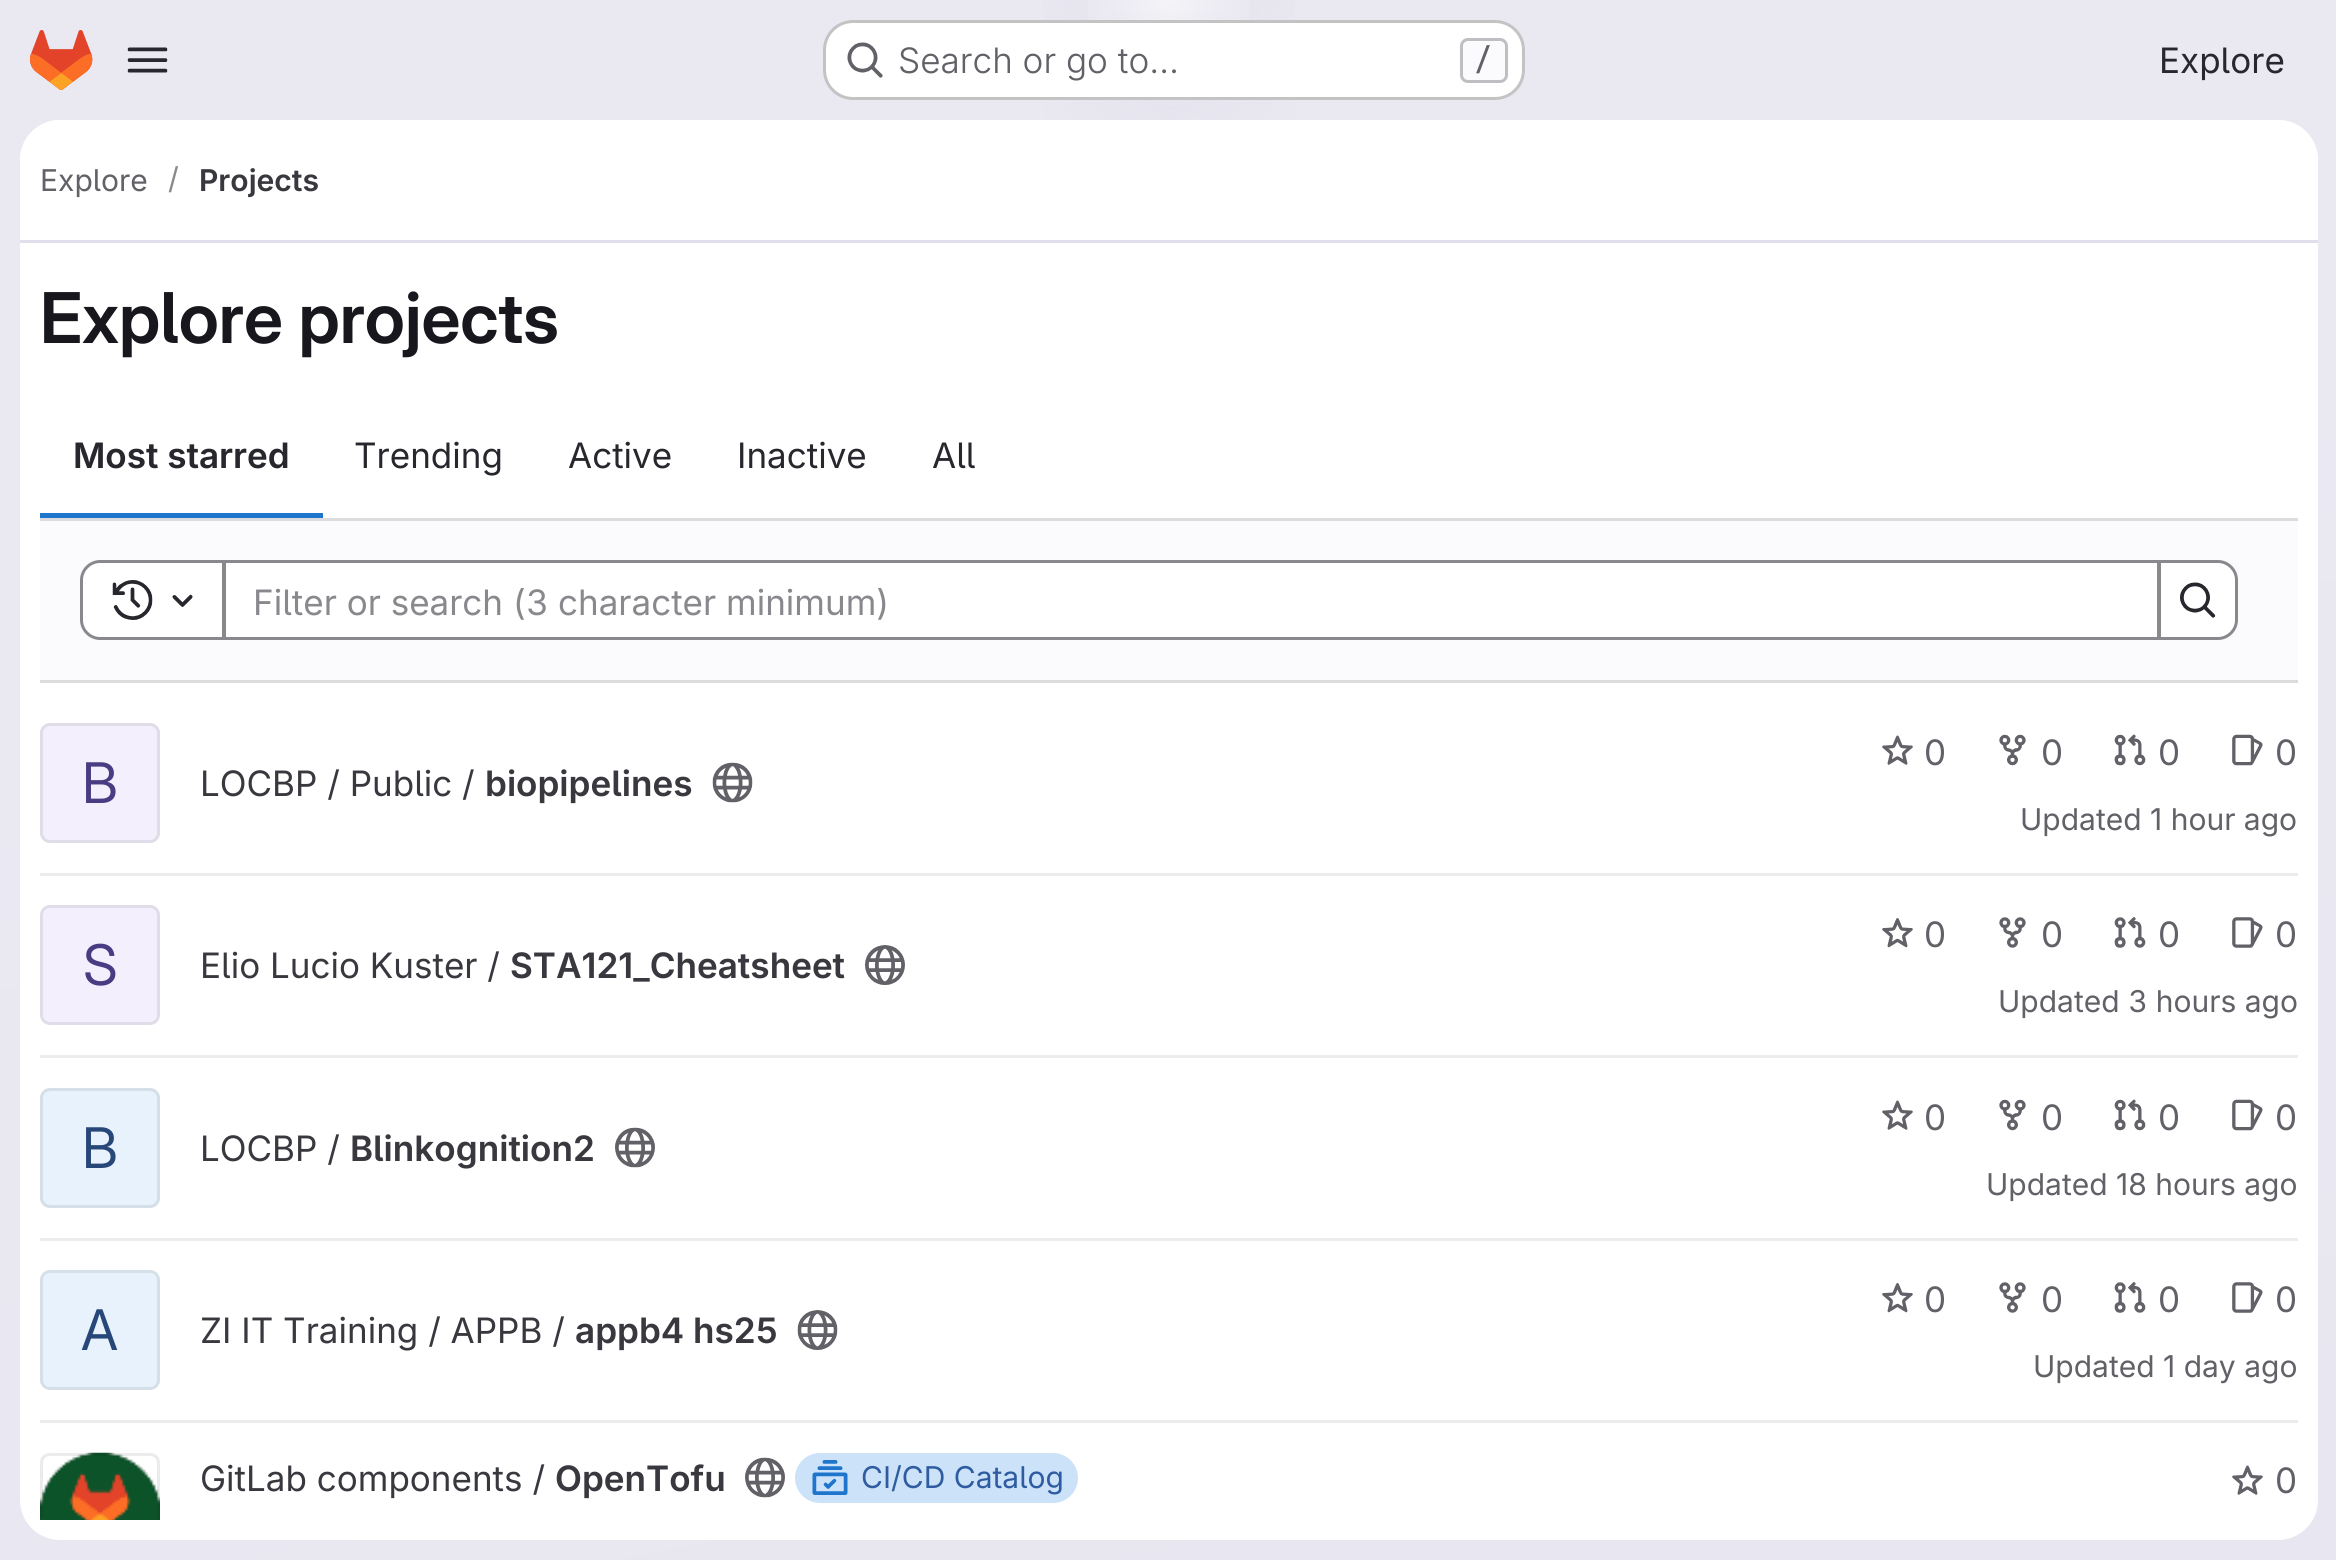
#include <cairo.h>
#include <math.h>
#include <stddef.h>


static void round_rect(cairo_t *cr, double x, double y, double w, double h, double r) {
    cairo_new_sub_path(cr);
    cairo_arc(cr, x + w - r, y + h - r, r, 0, M_PI / 2);
    cairo_arc(cr, x + r, y + h - r, r, M_PI / 2, M_PI);
    cairo_arc(cr, x + r, y + r, r, M_PI, 1.5 * M_PI);
    cairo_arc(cr, x + w - r, y + r, r, 1.5 * M_PI, 2 * M_PI);
    cairo_close_path(cr);
}

static void picture(cairo_t *cr, const char *path, double x, double y, double w, double h) {
    cairo_surface_t *image = cairo_image_surface_create_from_png(path);
    cairo_save(cr);
    cairo_set_source_surface(cr, image, x, y);
    cairo_rectangle(cr, x, y, w, h);
    cairo_fill(cr);
    cairo_restore(cr);
    cairo_surface_destroy(image);
}

int main(void) {
    cairo_surface_t *surface = cairo_image_surface_create(CAIRO_FORMAT_RGB24, 2336, 1560);
    cairo_t *cr = cairo_create(surface);
    cairo_font_options_t *options = cairo_font_options_create();
    cairo_font_options_set_hint_metrics(options, CAIRO_HINT_METRICS_OFF);
    cairo_font_options_set_hint_style(options, CAIRO_HINT_STYLE_NONE);
    cairo_set_font_options(cr, options);
    cairo_set_miter_limit(cr, 4);
    cairo_pattern_t *gradient;
    cairo_set_source_rgb(cr, 1, 1, 1);
    cairo_paint(cr);
    gradient = cairo_pattern_create_linear(1337, 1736, 1000, -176);
    cairo_pattern_add_color_stop_rgba(gradient, 0, 0.91, 0.902, 0.941, 1);
    cairo_pattern_add_color_stop_rgba(gradient, 0.7, 0.918, 0.914, 0.949, 1);
    cairo_set_source(cr, gradient);
    cairo_pattern_destroy(gradient);
    cairo_rectangle(cr, 0, 0, 2336, 1560);
    cairo_fill(cr);
    gradient = cairo_pattern_create_radial(0, 0, 0, 0, 0, 1);
    cairo_pattern_set_matrix(gradient, &(cairo_matrix_t){1.0 / 1169, 0, 0, 1.0 / 1560, -1.0 * 1169 / 1169, -1.0 * 0 / 1560});
    cairo_pattern_add_color_stop_rgba(gradient, 0, 0.894, 0.886, 0.929, 1);
    cairo_pattern_add_color_stop_rgba(gradient, 0.15, 0.894, 0.886, 0.929, 0);
    cairo_set_source(cr, gradient);
    cairo_pattern_destroy(gradient);
    cairo_rectangle(cr, 1043, 0, 252, 120);
    cairo_fill(cr);
    gradient = cairo_pattern_create_radial(0, 0, 0, 0, 0, 1);
    cairo_pattern_set_matrix(gradient, &(cairo_matrix_t){1.0 / 1169, 0, 0, 1.0 / 1560, -1.0 * 1169 / 1169, -1.0 * 0 / 1560});
    cairo_pattern_add_color_stop_rgba(gradient, 0, 0.894, 0.886, 0.925, 1);
    cairo_pattern_add_color_stop_rgba(gradient, 0.11, 0.894, 0.886, 0.925, 0);
    cairo_set_source(cr, gradient);
    cairo_pattern_destroy(gradient);
    cairo_rectangle(cr, 1110, 11, 118, 66);
    cairo_fill(cr);
    gradient = cairo_pattern_create_radial(1169, 0, 0, 1169, 0, 1949);
    cairo_pattern_add_color_stop_rgba(gradient, 0, 1, 1, 1, 0.6);
    cairo_pattern_add_color_stop_rgba(gradient, 0.05, 1, 1, 1, 0);
    cairo_set_source(cr, gradient);
    cairo_pattern_destroy(gradient);
    cairo_rectangle(cr, 1088, 0, 162, 82);
    cairo_fill(cr);
    picture(cr, "img1.png", 30, 30, 63, 60);
    picture(cr, "img2.png", 127, 47, 41, 26);
    cairo_set_source_rgb(cr, 1, 1, 1);
    round_rect(cr, 823, 20, 702, 80, 30);
    cairo_fill(cr);
    round_rect(cr, 824.5, 21.5, 699, 77, 28.5);
    cairo_set_source_rgba(cr, 0.02, 0.02, 0.024, 0.24);
    cairo_set_line_width(cr, 3);
    cairo_stroke(cr);
    picture(cr, "img3.png", 847, 42, 36, 36);
    cairo_select_font_face(cr, "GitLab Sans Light", CAIRO_FONT_SLANT_NORMAL, CAIRO_FONT_WEIGHT_NORMAL);
    cairo_set_font_size(cr, 35);
    cairo_set_source_rgb(cr, 0.384, 0.38, 0.408);
    cairo_move_to(cr, 898, 73);
    cairo_show_text(cr, "Search or go to…");
    cairo_set_source_rgb(cr, 0.984, 0.98, 0.992);
    round_rect(cr, 1461.5, 39.5, 45, 42, 6.5);
    cairo_fill_preserve(cr);
    cairo_set_source_rgb(cr, 0.749, 0.749, 0.765);
    cairo_stroke(cr);
    cairo_select_font_face(cr, "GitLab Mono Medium", CAIRO_FONT_SLANT_NORMAL, CAIRO_FONT_WEIGHT_NORMAL);
    cairo_set_font_size(cr, 30);
    cairo_set_source_rgb(cr, 0.384, 0.38, 0.408);
    cairo_move_to(cr, 1474, 70);
    cairo_show_text(cr, "/");
    cairo_select_font_face(cr, "GitLab Sans", CAIRO_FONT_SLANT_NORMAL, CAIRO_FONT_WEIGHT_NORMAL);
    cairo_set_font_size(cr, 35);
    cairo_set_source_rgb(cr, 0.157, 0.153, 0.176);
    cairo_move_to(cr, 2159, 73);
    cairo_show_text(cr, "Explore");
    cairo_set_source_rgb(cr, 1, 1, 1);
    round_rect(cr, 20, 120, 2298, 1420, 40);
    cairo_fill(cr);
    cairo_new_path(cr);
    cairo_move_to(cr, 60, 120);
    cairo_line_to(cr, 2278, 120);
    cairo_curve_to(cr, 2300, 120, 2318, 138, 2318, 160);
    cairo_line_to(cr, 2318, 243);
    cairo_line_to(cr, 20, 243);
    cairo_line_to(cr, 20, 160);
    cairo_curve_to(cr, 20, 138, 38, 120, 60, 120);
    cairo_close_path(cr);
    cairo_fill(cr);
    cairo_set_source_rgb(cr, 0.882, 0.875, 0.925);
    cairo_rectangle(cr, 20, 240, 2298, 3);
    cairo_fill(cr);
    cairo_set_font_size(cr, 30);
    cairo_set_source_rgb(cr, 0.384, 0.38, 0.408);
    cairo_move_to(cr, 40, 191);
    cairo_show_text(cr, "Explore");
    cairo_set_source_rgb(cr, 0.537, 0.533, 0.553);
    cairo_move_to(cr, 168, 189);
    cairo_show_text(cr, "/");
    cairo_select_font_face(cr, "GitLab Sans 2 SemiBold", CAIRO_FONT_SLANT_NORMAL, CAIRO_FONT_WEIGHT_NORMAL);
    cairo_set_source_rgb(cr, 0.227, 0.22, 0.247);
    cairo_move_to(cr, 199, 191);
    cairo_show_text(cr, "Projects");
    cairo_select_font_face(cr, "GitLab Sans SemiBold", CAIRO_FONT_SLANT_NORMAL, CAIRO_FONT_WEIGHT_NORMAL);
    cairo_set_font_size(cr, 70);
    cairo_set_source_rgb(cr, 0.094, 0.09, 0.114);
    cairo_move_to(cr, 40, 343);
    cairo_show_text(cr, "Explore projects");
    cairo_select_font_face(cr, "GitLab Sans 2 SemiBold", CAIRO_FONT_SLANT_NORMAL, CAIRO_FONT_WEIGHT_NORMAL);
    cairo_set_font_size(cr, 35);
    cairo_set_source_rgb(cr, 0.157, 0.153, 0.176);
    cairo_move_to(cr, 73, 468);
    cairo_show_text(cr, "Most starred");
    cairo_set_source_rgb(cr, 0.122, 0.459, 0.796);
    cairo_rectangle(cr, 40, 513, 283, 5);
    cairo_fill(cr);
    cairo_select_font_face(cr, "GitLab Sans", CAIRO_FONT_SLANT_NORMAL, CAIRO_FONT_WEIGHT_NORMAL);
    cairo_set_source_rgb(cr, 0.157, 0.153, 0.176);
    cairo_move_to(cr, 354, 468);
    cairo_show_text(cr, "Trending");
    cairo_move_to(cr, 568, 468);
    cairo_show_text(cr, "Active");
    cairo_move_to(cr, 737, 468);
    cairo_show_text(cr, "Inactive");
    cairo_move_to(cr, 932, 468);
    cairo_show_text(cr, "All");
    cairo_set_source_rgb(cr, 0.984, 0.98, 0.992);
    cairo_rectangle(cr, 40, 521, 2258, 159);
    cairo_fill(cr);
    cairo_set_source_rgb(cr, 0.863, 0.863, 0.871);
    cairo_rectangle(cr, 40, 518, 2258, 3);
    cairo_fill(cr);
    cairo_rectangle(cr, 40, 680, 2258, 3);
    cairo_fill(cr);
    cairo_set_source_rgb(cr, 1, 1, 1);
    cairo_rectangle(cr, 224.5, 561.5, 1934, 77);
    cairo_fill_preserve(cr);
    cairo_set_source_rgb(cr, 0.537, 0.533, 0.553);
    cairo_stroke(cr);
    cairo_set_source_rgb(cr, 1, 1, 1);
    cairo_new_path(cr);
    cairo_move_to(cr, 100, 561.5);
    cairo_line_to(cr, 223.5, 561.5);
    cairo_line_to(cr, 223.5, 638.5);
    cairo_line_to(cr, 100, 638.5);
    cairo_curve_to(cr, 90, 638.5, 81.5, 630, 81.5, 620);
    cairo_line_to(cr, 81.5, 580);
    cairo_curve_to(cr, 81.5, 570, 90, 561.5, 100, 561.5);
    cairo_close_path(cr);
    cairo_fill_preserve(cr);
    cairo_set_source_rgb(cr, 0.537, 0.533, 0.553);
    cairo_stroke(cr);
    picture(cr, "img4.png", 112, 580, 41, 40);
    picture(cr, "img5.png", 172, 594, 21, 13);
    cairo_move_to(cr, 253, 615);
    cairo_show_text(cr, "Filter or search (3 character minimum)");
    cairo_set_source_rgb(cr, 1, 1, 1);
    cairo_new_path(cr);
    cairo_move_to(cr, 2159.5, 561.5);
    cairo_line_to(cr, 2218, 561.5);
    cairo_curve_to(cr, 2228, 561.5, 2236.5, 570, 2236.5, 580);
    cairo_line_to(cr, 2236.5, 620);
    cairo_curve_to(cr, 2236.5, 630, 2228, 638.5, 2218, 638.5);
    cairo_line_to(cr, 2159.5, 638.5);
    cairo_close_path(cr);
    cairo_fill_preserve(cr);
    cairo_set_source_rgb(cr, 0.537, 0.533, 0.553);
    cairo_stroke(cr);
    picture(cr, "img6.png", 2180, 582, 36, 36);
    cairo_set_source_rgb(cr, 0.925, 0.925, 0.937);
    cairo_rectangle(cr, 40, 873, 2258, 3);
    cairo_fill(cr);
    cairo_set_source_rgb(cr, 0.953, 0.937, 0.988);
    round_rect(cr, 40, 723, 120, 120, 10);
    cairo_fill(cr);
    round_rect(cr, 41.5, 724.5, 117, 117, 8.5);
    cairo_set_source_rgba(cr, 0.02, 0.02, 0.024, 0.08);
    cairo_stroke(cr);
    cairo_select_font_face(cr, "GitLab Sans 2", CAIRO_FONT_SLANT_NORMAL, CAIRO_FONT_WEIGHT_NORMAL);
    cairo_set_font_size(cr, 56);
    cairo_set_source_rgb(cr, 0.286, 0.235, 0.514);
    cairo_move_to(cr, 82, 803);
    cairo_show_text(cr, "B");
    cairo_select_font_face(cr, "GitLab Sans", CAIRO_FONT_SLANT_NORMAL, CAIRO_FONT_WEIGHT_NORMAL);
    cairo_set_font_size(cr, 35);
    cairo_set_source_rgb(cr, 0.227, 0.22, 0.247);
    cairo_move_to(cr, 200, 796);
    cairo_show_text(cr, "LOCBP / Public /");
    cairo_select_font_face(cr, "GitLab Sans 2 SemiBold", CAIRO_FONT_SLANT_NORMAL, CAIRO_FONT_WEIGHT_NORMAL);
    cairo_move_to(cr, 485, 796);
    cairo_show_text(cr, "biopipelines");
    picture(cr, "img7.png", 712, 762, 41, 41);
    picture(cr, "img8.png", 1882, 735, 31, 30);
    cairo_select_font_face(cr, "GitLab Sans", CAIRO_FONT_SLANT_NORMAL, CAIRO_FONT_WEIGHT_NORMAL);
    cairo_set_source_rgb(cr, 0.384, 0.38, 0.408);
    cairo_move_to(cr, 1924, 765);
    cairo_show_text(cr, "0");
    picture(cr, "img9.png", 1999, 734, 27, 32);
    cairo_move_to(cr, 2041, 765);
    cairo_show_text(cr, "0");
    picture(cr, "img10.png", 2114, 734, 32, 32);
    cairo_move_to(cr, 2158, 765);
    cairo_show_text(cr, "0");
    picture(cr, "img11.png", 2232, 734, 31, 32);
    cairo_move_to(cr, 2275, 765);
    cairo_show_text(cr, "0");
    cairo_set_font_size(cr, 30);
    cairo_move_to(cr, 2020, 830);
    cairo_show_text(cr, "Updated 1 hour ago");
    cairo_set_source_rgb(cr, 0.925, 0.925, 0.937);
    cairo_rectangle(cr, 40, 1055, 2258, 3);
    cairo_fill(cr);
    cairo_set_source_rgb(cr, 0.953, 0.937, 0.988);
    round_rect(cr, 40, 905, 120, 120, 10);
    cairo_fill(cr);
    round_rect(cr, 41.5, 906.5, 117, 117, 8.5);
    cairo_set_source_rgba(cr, 0.02, 0.02, 0.024, 0.08);
    cairo_stroke(cr);
    cairo_select_font_face(cr, "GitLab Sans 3", CAIRO_FONT_SLANT_NORMAL, CAIRO_FONT_WEIGHT_NORMAL);
    cairo_set_font_size(cr, 56);
    cairo_set_source_rgb(cr, 0.286, 0.235, 0.514);
    cairo_move_to(cr, 83, 985);
    cairo_show_text(cr, "S");
    cairo_select_font_face(cr, "GitLab Sans", CAIRO_FONT_SLANT_NORMAL, CAIRO_FONT_WEIGHT_NORMAL);
    cairo_set_font_size(cr, 35);
    cairo_set_source_rgb(cr, 0.227, 0.22, 0.247);
    cairo_move_to(cr, 200, 978);
    cairo_show_text(cr, "Elio Lucio Kuster /");
    cairo_select_font_face(cr, "GitLab Sans 2 SemiBold", CAIRO_FONT_SLANT_NORMAL, CAIRO_FONT_WEIGHT_NORMAL);
    cairo_move_to(cr, 510, 978);
    cairo_show_text(cr, "STA121_Cheatsheet");
    picture(cr, "img12.png", 865, 945, 40, 40);
    picture(cr, "img13.png", 1882, 918, 31, 30);
    cairo_select_font_face(cr, "GitLab Sans", CAIRO_FONT_SLANT_NORMAL, CAIRO_FONT_WEIGHT_NORMAL);
    cairo_set_source_rgb(cr, 0.384, 0.38, 0.408);
    cairo_move_to(cr, 1924, 947);
    cairo_show_text(cr, "0");
    picture(cr, "img14.png", 1999, 917, 27, 31);
    cairo_move_to(cr, 2041, 947);
    cairo_show_text(cr, "0");
    picture(cr, "img15.png", 2114, 917, 32, 31);
    cairo_move_to(cr, 2158, 947);
    cairo_show_text(cr, "0");
    picture(cr, "img16.png", 2232, 917, 31, 31);
    cairo_move_to(cr, 2275, 947);
    cairo_show_text(cr, "0");
    cairo_set_font_size(cr, 30);
    cairo_move_to(cr, 1998, 1012);
    cairo_show_text(cr, "Updated 3 hours ago");
    cairo_set_source_rgb(cr, 0.925, 0.925, 0.937);
    cairo_rectangle(cr, 40, 1238, 2258, 3);
    cairo_fill(cr);
    cairo_set_source_rgb(cr, 0.906, 0.949, 0.988);
    round_rect(cr, 40, 1088, 120, 120, 10);
    cairo_fill(cr);
    round_rect(cr, 41.5, 1089.5, 117, 117, 8.5);
    cairo_set_source_rgba(cr, 0.02, 0.02, 0.024, 0.08);
    cairo_stroke(cr);
    cairo_select_font_face(cr, "GitLab Sans 2", CAIRO_FONT_SLANT_NORMAL, CAIRO_FONT_WEIGHT_NORMAL);
    cairo_set_font_size(cr, 56);
    cairo_set_source_rgb(cr, 0.157, 0.278, 0.475);
    cairo_move_to(cr, 82, 1168);
    cairo_show_text(cr, "B");
    cairo_select_font_face(cr, "GitLab Sans", CAIRO_FONT_SLANT_NORMAL, CAIRO_FONT_WEIGHT_NORMAL);
    cairo_set_font_size(cr, 35);
    cairo_set_source_rgb(cr, 0.227, 0.22, 0.247);
    cairo_move_to(cr, 200, 1161);
    cairo_show_text(cr, "LOCBP /");
    cairo_select_font_face(cr, "GitLab Sans 2 SemiBold", CAIRO_FONT_SLANT_NORMAL, CAIRO_FONT_WEIGHT_NORMAL);
    cairo_move_to(cr, 350, 1161);
    cairo_show_text(cr, "Blinkognition2");
    picture(cr, "img17.png", 615, 1127, 40, 41);
    picture(cr, "img18.png", 1882, 1100, 31, 30);
    cairo_select_font_face(cr, "GitLab Sans", CAIRO_FONT_SLANT_NORMAL, CAIRO_FONT_WEIGHT_NORMAL);
    cairo_set_source_rgb(cr, 0.384, 0.38, 0.408);
    cairo_move_to(cr, 1924, 1130);
    cairo_show_text(cr, "0");
    picture(cr, "img19.png", 1999, 1099, 27, 32);
    cairo_move_to(cr, 2041, 1130);
    cairo_show_text(cr, "0");
    picture(cr, "img20.png", 2114, 1099, 32, 32);
    cairo_move_to(cr, 2158, 1130);
    cairo_show_text(cr, "0");
    picture(cr, "img21.png", 2232, 1099, 31, 32);
    cairo_move_to(cr, 2275, 1130);
    cairo_show_text(cr, "0");
    cairo_set_font_size(cr, 30);
    cairo_move_to(cr, 1986, 1195);
    cairo_show_text(cr, "Updated 18 hours ago");
    cairo_set_source_rgb(cr, 0.925, 0.925, 0.937);
    cairo_rectangle(cr, 40, 1420, 2258, 3);
    cairo_fill(cr);
    cairo_set_source_rgb(cr, 0.906, 0.949, 0.988);
    round_rect(cr, 40, 1270, 120, 120, 10);
    cairo_fill(cr);
    round_rect(cr, 41.5, 1271.5, 117, 117, 8.5);
    cairo_set_source_rgba(cr, 0.02, 0.02, 0.024, 0.08);
    cairo_stroke(cr);
    cairo_select_font_face(cr, "GitLab Sans 3", CAIRO_FONT_SLANT_NORMAL, CAIRO_FONT_WEIGHT_NORMAL);
    cairo_set_font_size(cr, 56);
    cairo_set_source_rgb(cr, 0.157, 0.278, 0.475);
    cairo_move_to(cr, 81, 1350);
    cairo_show_text(cr, "A");
    cairo_select_font_face(cr, "GitLab Sans", CAIRO_FONT_SLANT_NORMAL, CAIRO_FONT_WEIGHT_NORMAL);
    cairo_set_font_size(cr, 35);
    cairo_set_source_rgb(cr, 0.227, 0.22, 0.247);
    cairo_move_to(cr, 200, 1343);
    cairo_show_text(cr, "ZI IT Training / APPB /");
    cairo_select_font_face(cr, "GitLab Sans 2 SemiBold", CAIRO_FONT_SLANT_NORMAL, CAIRO_FONT_WEIGHT_NORMAL);
    cairo_move_to(cr, 575, 1343);
    cairo_show_text(cr, "appb4 hs25");
    picture(cr, "img22.png", 797, 1310, 41, 40);
    picture(cr, "img13.png", 1882, 1283, 31, 30);
    cairo_select_font_face(cr, "GitLab Sans", CAIRO_FONT_SLANT_NORMAL, CAIRO_FONT_WEIGHT_NORMAL);
    cairo_set_source_rgb(cr, 0.384, 0.38, 0.408);
    cairo_move_to(cr, 1924, 1312);
    cairo_show_text(cr, "0");
    picture(cr, "img14.png", 1999, 1282, 27, 31);
    cairo_move_to(cr, 2041, 1312);
    cairo_show_text(cr, "0");
    picture(cr, "img15.png", 2114, 1282, 32, 31);
    cairo_move_to(cr, 2158, 1312);
    cairo_show_text(cr, "0");
    picture(cr, "img16.png", 2232, 1282, 31, 31);
    cairo_move_to(cr, 2275, 1312);
    cairo_show_text(cr, "0");
    cairo_set_font_size(cr, 30);
    cairo_move_to(cr, 2033, 1377);
    cairo_show_text(cr, "Updated 1 day ago");
    picture(cr, "img23.png", 40, 1452, 120, 68);
    cairo_save(cr);
    cairo_rectangle(cr, 20, 243, 2298, 1277);
    cairo_clip(cr);
    cairo_set_source_rgba(cr, 0.02, 0.02, 0.024, 0.08);
    cairo_new_path(cr);
    cairo_move_to(cr, 50, 1453);
    cairo_curve_to(cr, 44, 1453, 40, 1457, 40, 1463);
    cairo_line_to(cr, 40, 1535);
    cairo_line_to(cr, 43, 1536);
    cairo_line_to(cr, 43, 1463);
    cairo_curve_to(cr, 43, 1459, 46, 1456, 50, 1456);
    cairo_line_to(cr, 150, 1456);
    cairo_curve_to(cr, 154, 1456, 157, 1459, 157, 1463);
    cairo_line_to(cr, 157, 1540);
    cairo_line_to(cr, 160, 1540);
    cairo_line_to(cr, 160, 1463);
    cairo_curve_to(cr, 160, 1457, 156, 1453, 150, 1453);
    cairo_close_path(cr);
    cairo_fill(cr);
    cairo_restore(cr);
    cairo_set_font_size(cr, 35);
    cairo_set_source_rgb(cr, 0.227, 0.22, 0.247);
    cairo_move_to(cr, 200, 1491);
    cairo_show_text(cr, "GitLab components /");
    cairo_select_font_face(cr, "GitLab Sans 2 SemiBold", CAIRO_FONT_SLANT_NORMAL, CAIRO_FONT_WEIGHT_NORMAL);
    cairo_move_to(cr, 555, 1491);
    cairo_show_text(cr, "OpenTofu");
    picture(cr, "img24.png", 745, 1457, 40, 41);
    cairo_set_source_rgb(cr, 0.796, 0.886, 0.976);
    round_rect(cr, 795, 1453, 283, 50, 25);
    cairo_fill(cr);
    picture(cr, "img25.png", 812, 1460, 36, 35);
    cairo_select_font_face(cr, "GitLab Sans", CAIRO_FONT_SLANT_NORMAL, CAIRO_FONT_WEIGHT_NORMAL);
    cairo_set_font_size(cr, 30);
    cairo_set_source_rgb(cr, 0.184, 0.361, 0.627);
    cairo_move_to(cr, 861, 1488);
    cairo_show_text(cr, "CI/CD Catalog");
    picture(cr, "img18.png", 2232, 1465, 31, 30);
    cairo_set_font_size(cr, 35);
    cairo_set_source_rgb(cr, 0.384, 0.38, 0.408);
    cairo_move_to(cr, 2275, 1493);
    cairo_show_text(cr, "0");
    cairo_surface_write_to_png(surface, "page.png");
    cairo_font_options_destroy(options);
    cairo_destroy(cr);
    cairo_surface_destroy(surface);
    return 0;
}
